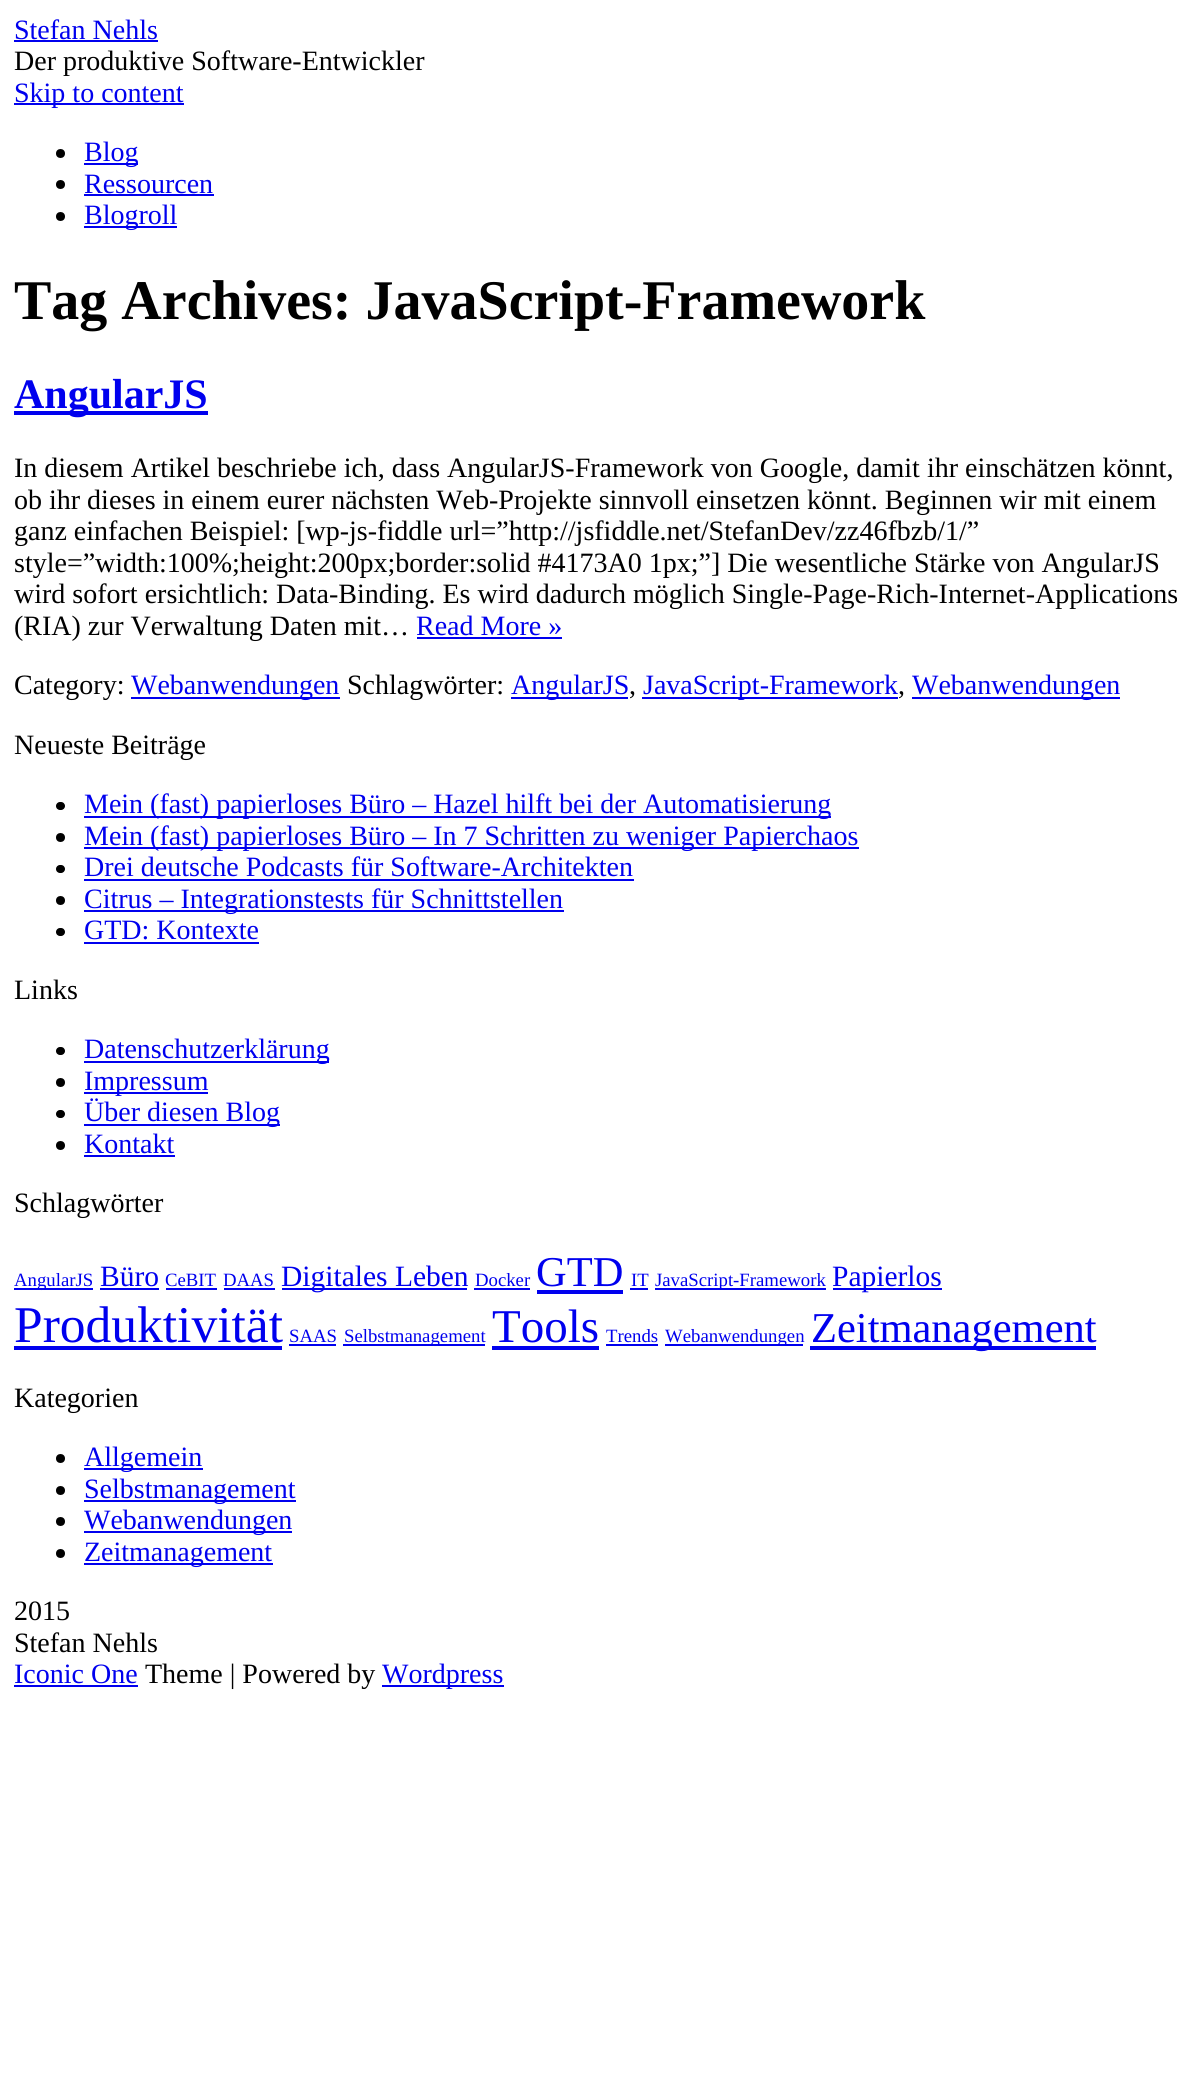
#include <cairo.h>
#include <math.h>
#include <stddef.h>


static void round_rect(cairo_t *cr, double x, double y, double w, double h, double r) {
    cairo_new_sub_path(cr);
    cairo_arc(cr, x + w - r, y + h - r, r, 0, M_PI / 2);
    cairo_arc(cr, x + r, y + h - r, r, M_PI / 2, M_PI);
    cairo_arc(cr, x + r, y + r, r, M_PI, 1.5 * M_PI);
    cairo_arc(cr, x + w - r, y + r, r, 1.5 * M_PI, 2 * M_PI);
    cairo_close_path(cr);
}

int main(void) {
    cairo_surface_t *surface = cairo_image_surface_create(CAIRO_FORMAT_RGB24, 1201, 2094);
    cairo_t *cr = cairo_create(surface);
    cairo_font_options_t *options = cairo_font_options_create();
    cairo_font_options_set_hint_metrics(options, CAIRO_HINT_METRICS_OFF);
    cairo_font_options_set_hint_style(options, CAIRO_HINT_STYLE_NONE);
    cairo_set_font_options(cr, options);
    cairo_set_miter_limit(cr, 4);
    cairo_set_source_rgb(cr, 1, 1, 1);
    cairo_paint(cr);
    cairo_select_font_face(cr, "Liberation Serif", CAIRO_FONT_SLANT_NORMAL, CAIRO_FONT_WEIGHT_NORMAL);
    cairo_set_font_size(cr, 28);
    cairo_set_source_rgb(cr, 0, 0, 0.933);
    cairo_move_to(cr, 14, 39);
    cairo_show_text(cr, "Stefan Nehls");
    cairo_rectangle(cr, 14, 40, 144, 2);
    cairo_fill(cr);
    cairo_set_source_rgb(cr, 0, 0, 0);
    cairo_move_to(cr, 14, 70);
    cairo_show_text(cr, "Der produktive Software-Entwickler");
    cairo_set_source_rgb(cr, 0, 0, 0.933);
    cairo_rectangle(cr, 14, 103, 170, 2);
    cairo_fill(cr);
    cairo_move_to(cr, 14, 102);
    cairo_show_text(cr, "Skip to content");
    cairo_set_source_rgb(cr, 0, 0, 0);
    cairo_new_path(cr);
    cairo_arc(cr, 60.5, 153.5, 4.5, 0, 2 * M_PI);
    cairo_fill(cr);
    cairo_set_source_rgb(cr, 0, 0, 0.933);
    cairo_rectangle(cr, 84, 163, 54, 2);
    cairo_fill(cr);
    cairo_move_to(cr, 84, 161);
    cairo_show_text(cr, "Blog");
    cairo_set_source_rgb(cr, 0, 0, 0);
    cairo_new_path(cr);
    cairo_arc(cr, 60.5, 184.5, 4.5, 0, 2 * M_PI);
    cairo_fill(cr);
    cairo_set_source_rgb(cr, 0, 0, 0.933);
    cairo_move_to(cr, 84, 193);
    cairo_show_text(cr, "Ressourcen");
    cairo_rectangle(cr, 84, 194, 130, 2);
    cairo_fill(cr);
    cairo_set_source_rgb(cr, 0, 0, 0);
    cairo_arc(cr, 60.5, 216.5, 4.5, 0, 2 * M_PI);
    cairo_fill(cr);
    cairo_set_source_rgb(cr, 0, 0, 0.933);
    cairo_rectangle(cr, 84, 226, 93, 2);
    cairo_fill(cr);
    cairo_move_to(cr, 84, 224);
    cairo_show_text(cr, "Blogroll");
    cairo_select_font_face(cr, "Liberation Serif", CAIRO_FONT_SLANT_NORMAL, CAIRO_FONT_WEIGHT_BOLD);
    cairo_set_font_size(cr, 56);
    cairo_set_source_rgb(cr, 0, 0, 0);
    cairo_move_to(cr, 14, 319);
    cairo_show_text(cr, "Tag Archives: JavaScript-Framework");
    cairo_set_source_rgb(cr, 0, 0, 0.933);
    cairo_rectangle(cr, 14, 411, 194, 4);
    cairo_fill(cr);
    cairo_set_font_size(cr, 42);
    cairo_move_to(cr, 14, 408);
    cairo_show_text(cr, "AngularJS");
    cairo_select_font_face(cr, "Liberation Serif", CAIRO_FONT_SLANT_NORMAL, CAIRO_FONT_WEIGHT_NORMAL);
    cairo_set_font_size(cr, 28);
    cairo_set_source_rgb(cr, 0, 0, 0);
    cairo_move_to(cr, 14, 477);
    cairo_show_text(cr, "In diesem Artikel beschriebe ich, dass AngularJS-Framework von Google, damit ihr einschätzen könnt,");
    cairo_move_to(cr, 14, 509);
    cairo_show_text(cr, "ob ihr dieses in einem eurer nächsten Web-Projekte sinnvoll einsetzen könnt. Beginnen wir mit einem");
    cairo_move_to(cr, 14, 540);
    cairo_show_text(cr, "ganz einfachen Beispiel: [wp-js-fiddle url=”http://jsfiddle.net/StefanDev/zz46fbzb/1/”");
    cairo_move_to(cr, 14, 572);
    cairo_show_text(cr, "style=”width:100%;height:200px;border:solid #4173A0 1px;”] Die wesentliche Stärke von AngularJS");
    cairo_move_to(cr, 14, 603);
    cairo_show_text(cr, "wird sofort ersichtlich: Data-Binding. Es wird dadurch möglich Single-Page-Rich-Internet-Applications");
    cairo_move_to(cr, 14, 635);
    cairo_show_text(cr, "(RIA) zur Verwaltung Daten mit…");
    cairo_set_source_rgb(cr, 0, 0, 0.933);
    cairo_move_to(cr, 416, 635);
    cairo_show_text(cr, "Read More »");
    cairo_rectangle(cr, 417, 637, 145, 2);
    cairo_fill(cr);
    cairo_set_source_rgb(cr, 0, 0, 0);
    cairo_move_to(cr, 14, 694);
    cairo_show_text(cr, "Category:");
    cairo_set_source_rgb(cr, 0, 0, 0.933);
    cairo_rectangle(cr, 131, 697, 209, 2);
    cairo_fill(cr);
    cairo_move_to(cr, 131, 694);
    cairo_show_text(cr, "Webanwendungen");
    cairo_set_source_rgb(cr, 0, 0, 0);
    cairo_move_to(cr, 347, 694);
    cairo_show_text(cr, "Schlagwörter:");
    cairo_set_source_rgb(cr, 0, 0, 0.933);
    cairo_rectangle(cr, 511, 697, 117, 2);
    cairo_fill(cr);
    cairo_move_to(cr, 511, 694);
    cairo_show_text(cr, "AngularJS");
    cairo_set_source_rgb(cr, 0, 0, 0);
    cairo_move_to(cr, 629, 694);
    cairo_show_text(cr, ",");
    cairo_set_source_rgb(cr, 0, 0, 0.933);
    cairo_rectangle(cr, 642, 697, 256, 2);
    cairo_fill(cr);
    cairo_move_to(cr, 643, 694);
    cairo_show_text(cr, "JavaScript-Framework");
    cairo_set_source_rgb(cr, 0, 0, 0);
    cairo_move_to(cr, 898, 694);
    cairo_show_text(cr, ",");
    cairo_set_source_rgb(cr, 0, 0, 0.933);
    cairo_rectangle(cr, 912, 697, 208, 2);
    cairo_fill(cr);
    cairo_move_to(cr, 912, 694);
    cairo_show_text(cr, "Webanwendungen");
    cairo_set_source_rgb(cr, 0, 0, 0);
    cairo_move_to(cr, 14, 754);
    cairo_show_text(cr, "Neueste Beiträge");
    round_rect(cr, 56, 802, 9, 8, 4);
    cairo_fill(cr);
    cairo_set_source_rgb(cr, 0, 0, 0.933);
    cairo_rectangle(cr, 84, 816, 747, 2);
    cairo_fill(cr);
    cairo_move_to(cr, 84, 813);
    cairo_show_text(cr, "Mein (fast) papierloses Büro – Hazel hilft bei der Automatisierung");
    cairo_set_source_rgb(cr, 0, 0, 0);
    cairo_new_path(cr);
    cairo_arc(cr, 60.5, 837.5, 4.5, 0, 2 * M_PI);
    cairo_fill(cr);
    cairo_set_source_rgb(cr, 0, 0, 0.933);
    cairo_rectangle(cr, 84, 847, 775, 2);
    cairo_fill(cr);
    cairo_move_to(cr, 84, 845);
    cairo_show_text(cr, "Mein (fast) papierloses Büro – In 7 Schritten zu weniger Papierchaos");
    cairo_set_source_rgb(cr, 0, 0, 0);
    round_rect(cr, 56, 865, 9, 8, 4);
    cairo_fill(cr);
    cairo_set_source_rgb(cr, 0, 0, 0.933);
    cairo_move_to(cr, 84, 876);
    cairo_show_text(cr, "Drei deutsche Podcasts für Software-Architekten");
    cairo_rectangle(cr, 84, 879, 550, 2);
    cairo_fill(cr);
    cairo_set_source_rgb(cr, 0, 0, 0);
    cairo_arc(cr, 60.5, 900.5, 4.5, 0, 2 * M_PI);
    cairo_fill(cr);
    cairo_set_source_rgb(cr, 0, 0, 0.933);
    cairo_rectangle(cr, 84, 910, 480, 2);
    cairo_fill(cr);
    cairo_move_to(cr, 84, 908);
    cairo_show_text(cr, "Citrus – Integrationstests für Schnittstellen");
    cairo_set_source_rgb(cr, 0, 0, 0);
    round_rect(cr, 56, 928, 9, 8, 4);
    cairo_fill(cr);
    cairo_set_source_rgb(cr, 0, 0, 0.933);
    cairo_move_to(cr, 84, 939);
    cairo_show_text(cr, "GTD: Kontexte");
    cairo_rectangle(cr, 84, 942, 175, 2);
    cairo_fill(cr);
    cairo_set_source_rgb(cr, 0, 0, 0);
    cairo_move_to(cr, 14, 999);
    cairo_show_text(cr, "Links");
    round_rect(cr, 56, 1047, 9, 8, 4);
    cairo_fill(cr);
    cairo_set_source_rgb(cr, 0, 0, 0.933);
    cairo_rectangle(cr, 84, 1061, 245, 2);
    cairo_fill(cr);
    cairo_move_to(cr, 84, 1058);
    cairo_show_text(cr, "Datenschutzerklärung");
    cairo_set_source_rgb(cr, 0, 0, 0);
    cairo_new_path(cr);
    cairo_arc(cr, 60.5, 1082.5, 4.5, 0, 2 * M_PI);
    cairo_fill(cr);
    cairo_set_source_rgb(cr, 0, 0, 0.933);
    cairo_rectangle(cr, 84, 1092, 124, 2);
    cairo_fill(cr);
    cairo_move_to(cr, 84, 1090);
    cairo_show_text(cr, "Impressum");
    cairo_set_source_rgb(cr, 0, 0, 0);
    round_rect(cr, 56, 1110, 9, 8, 4);
    cairo_fill(cr);
    cairo_set_source_rgb(cr, 0, 0, 0.933);
    cairo_rectangle(cr, 84, 1124, 196, 2);
    cairo_fill(cr);
    cairo_move_to(cr, 84, 1121);
    cairo_show_text(cr, "Über diesen Blog");
    cairo_set_source_rgb(cr, 0, 0, 0);
    cairo_new_path(cr);
    cairo_arc(cr, 60.5, 1145.5, 4.5, 0, 2 * M_PI);
    cairo_fill(cr);
    cairo_set_source_rgb(cr, 0, 0, 0.933);
    cairo_move_to(cr, 84, 1153);
    cairo_show_text(cr, "Kontakt");
    cairo_rectangle(cr, 84, 1155, 91, 2);
    cairo_fill(cr);
    cairo_set_source_rgb(cr, 0, 0, 0);
    cairo_move_to(cr, 14, 1212);
    cairo_show_text(cr, "Schlagwörter");
    cairo_set_source_rgb(cr, 0, 0, 0.933);
    cairo_rectangle(cr, 14, 1288, 79, 2);
    cairo_fill(cr);
    cairo_set_font_size(cr, 18.75);
    cairo_move_to(cr, 14, 1286);
    cairo_show_text(cr, "AngularJS");
    cairo_set_font_size(cr, 29.5);
    cairo_move_to(cr, 100, 1286);
    cairo_show_text(cr, "Büro");
    cairo_rectangle(cr, 100, 1288, 59, 2);
    cairo_fill(cr);
    cairo_set_font_size(cr, 18.75);
    cairo_move_to(cr, 165, 1286);
    cairo_show_text(cr, "CeBIT");
    cairo_rectangle(cr, 166, 1288, 51, 2);
    cairo_fill(cr);
    cairo_move_to(cr, 223, 1286);
    cairo_show_text(cr, "DAAS");
    cairo_rectangle(cr, 224, 1288, 51, 2);
    cairo_fill(cr);
    cairo_rectangle(cr, 282, 1288, 185, 2);
    cairo_fill(cr);
    cairo_set_font_size(cr, 29.5);
    cairo_move_to(cr, 281, 1286);
    cairo_show_text(cr, "Digitales Leben");
    cairo_set_font_size(cr, 18.75);
    cairo_move_to(cr, 475, 1286);
    cairo_show_text(cr, "Docker");
    cairo_rectangle(cr, 474, 1288, 56, 2);
    cairo_fill(cr);
    cairo_set_font_size(cr, 42.5);
    cairo_move_to(cr, 536, 1286);
    cairo_show_text(cr, "GTD");
    cairo_rectangle(cr, 537, 1290, 86, 4);
    cairo_fill(cr);
    cairo_set_font_size(cr, 18.75);
    cairo_move_to(cr, 631, 1286);
    cairo_show_text(cr, "IT");
    cairo_rectangle(cr, 630, 1288, 18, 2);
    cairo_fill(cr);
    cairo_rectangle(cr, 655, 1288, 171, 2);
    cairo_fill(cr);
    cairo_move_to(cr, 655, 1286);
    cairo_show_text(cr, "JavaScript-Framework");
    cairo_rectangle(cr, 833, 1288, 109, 2);
    cairo_fill(cr);
    cairo_set_font_size(cr, 29.5);
    cairo_move_to(cr, 832, 1286);
    cairo_show_text(cr, "Papierlos");
    cairo_set_font_size(cr, 51.5);
    cairo_move_to(cr, 14, 1342);
    cairo_show_text(cr, "Produktivität");
    cairo_rectangle(cr, 14, 1346, 268, 4);
    cairo_fill(cr);
    cairo_set_font_size(cr, 18.75);
    cairo_move_to(cr, 289, 1342);
    cairo_show_text(cr, "SAAS");
    cairo_rectangle(cr, 289, 1344, 47, 2);
    cairo_fill(cr);
    cairo_rectangle(cr, 343, 1344, 142, 2);
    cairo_fill(cr);
    cairo_move_to(cr, 344, 1342);
    cairo_show_text(cr, "Selbstmanagement");
    cairo_set_font_size(cr, 47);
    cairo_move_to(cr, 492, 1342);
    cairo_show_text(cr, "Tools");
    cairo_rectangle(cr, 492, 1346, 107, 4);
    cairo_fill(cr);
    cairo_set_font_size(cr, 18.75);
    cairo_move_to(cr, 606, 1342);
    cairo_show_text(cr, "Trends");
    cairo_rectangle(cr, 606, 1344, 52, 2);
    cairo_fill(cr);
    cairo_rectangle(cr, 665, 1344, 138, 2);
    cairo_fill(cr);
    cairo_move_to(cr, 665, 1342);
    cairo_show_text(cr, "Webanwendungen");
    cairo_rectangle(cr, 810, 1346, 286, 4);
    cairo_fill(cr);
    cairo_set_font_size(cr, 42.5);
    cairo_move_to(cr, 811, 1342);
    cairo_show_text(cr, "Zeitmanagement");
    cairo_set_font_size(cr, 28);
    cairo_set_source_rgb(cr, 0, 0, 0);
    cairo_move_to(cr, 14, 1407);
    cairo_show_text(cr, "Kategorien");
    cairo_new_path(cr);
    cairo_arc(cr, 60.5, 1458.5, 4.5, 0, 2 * M_PI);
    cairo_fill(cr);
    cairo_set_source_rgb(cr, 0, 0, 0.933);
    cairo_rectangle(cr, 84, 1468, 119, 2);
    cairo_fill(cr);
    cairo_move_to(cr, 84, 1466);
    cairo_show_text(cr, "Allgemein");
    cairo_set_source_rgb(cr, 0, 0, 0);
    cairo_new_path(cr);
    cairo_arc(cr, 60.5, 1490.5, 4.5, 0, 2 * M_PI);
    cairo_fill(cr);
    cairo_set_source_rgb(cr, 0, 0, 0.933);
    cairo_rectangle(cr, 84, 1500, 212, 2);
    cairo_fill(cr);
    cairo_move_to(cr, 84, 1498);
    cairo_show_text(cr, "Selbstmanagement");
    cairo_set_source_rgb(cr, 0, 0, 0);
    cairo_new_path(cr);
    cairo_arc(cr, 60.5, 1521.5, 4.5, 0, 2 * M_PI);
    cairo_fill(cr);
    cairo_set_source_rgb(cr, 0, 0, 0.933);
    cairo_rectangle(cr, 84, 1531, 208, 2);
    cairo_fill(cr);
    cairo_move_to(cr, 84, 1529);
    cairo_show_text(cr, "Webanwendungen");
    cairo_set_source_rgb(cr, 0, 0, 0);
    cairo_new_path(cr);
    cairo_arc(cr, 60.5, 1553.5, 4.5, 0, 2 * M_PI);
    cairo_fill(cr);
    cairo_set_source_rgb(cr, 0, 0, 0.933);
    cairo_rectangle(cr, 84, 1563, 189, 2);
    cairo_fill(cr);
    cairo_move_to(cr, 84, 1561);
    cairo_show_text(cr, "Zeitmanagement");
    cairo_set_source_rgb(cr, 0, 0, 0);
    cairo_move_to(cr, 14, 1620);
    cairo_show_text(cr, "2015");
    cairo_move_to(cr, 14, 1652);
    cairo_show_text(cr, "Stefan Nehls");
    cairo_set_source_rgb(cr, 0, 0, 0.933);
    cairo_move_to(cr, 14, 1683);
    cairo_show_text(cr, "Iconic One");
    cairo_rectangle(cr, 14, 1685, 124, 2);
    cairo_fill(cr);
    cairo_set_source_rgb(cr, 0, 0, 0);
    cairo_move_to(cr, 145, 1683);
    cairo_show_text(cr, "Theme | Powered by");
    cairo_set_source_rgb(cr, 0, 0, 0.933);
    cairo_rectangle(cr, 382, 1685, 122, 2);
    cairo_fill(cr);
    cairo_move_to(cr, 382, 1683);
    cairo_show_text(cr, "Wordpress");
    cairo_surface_write_to_png(surface, "page.png");
    cairo_font_options_destroy(options);
    cairo_destroy(cr);
    cairo_surface_destroy(surface);
    return 0;
}
